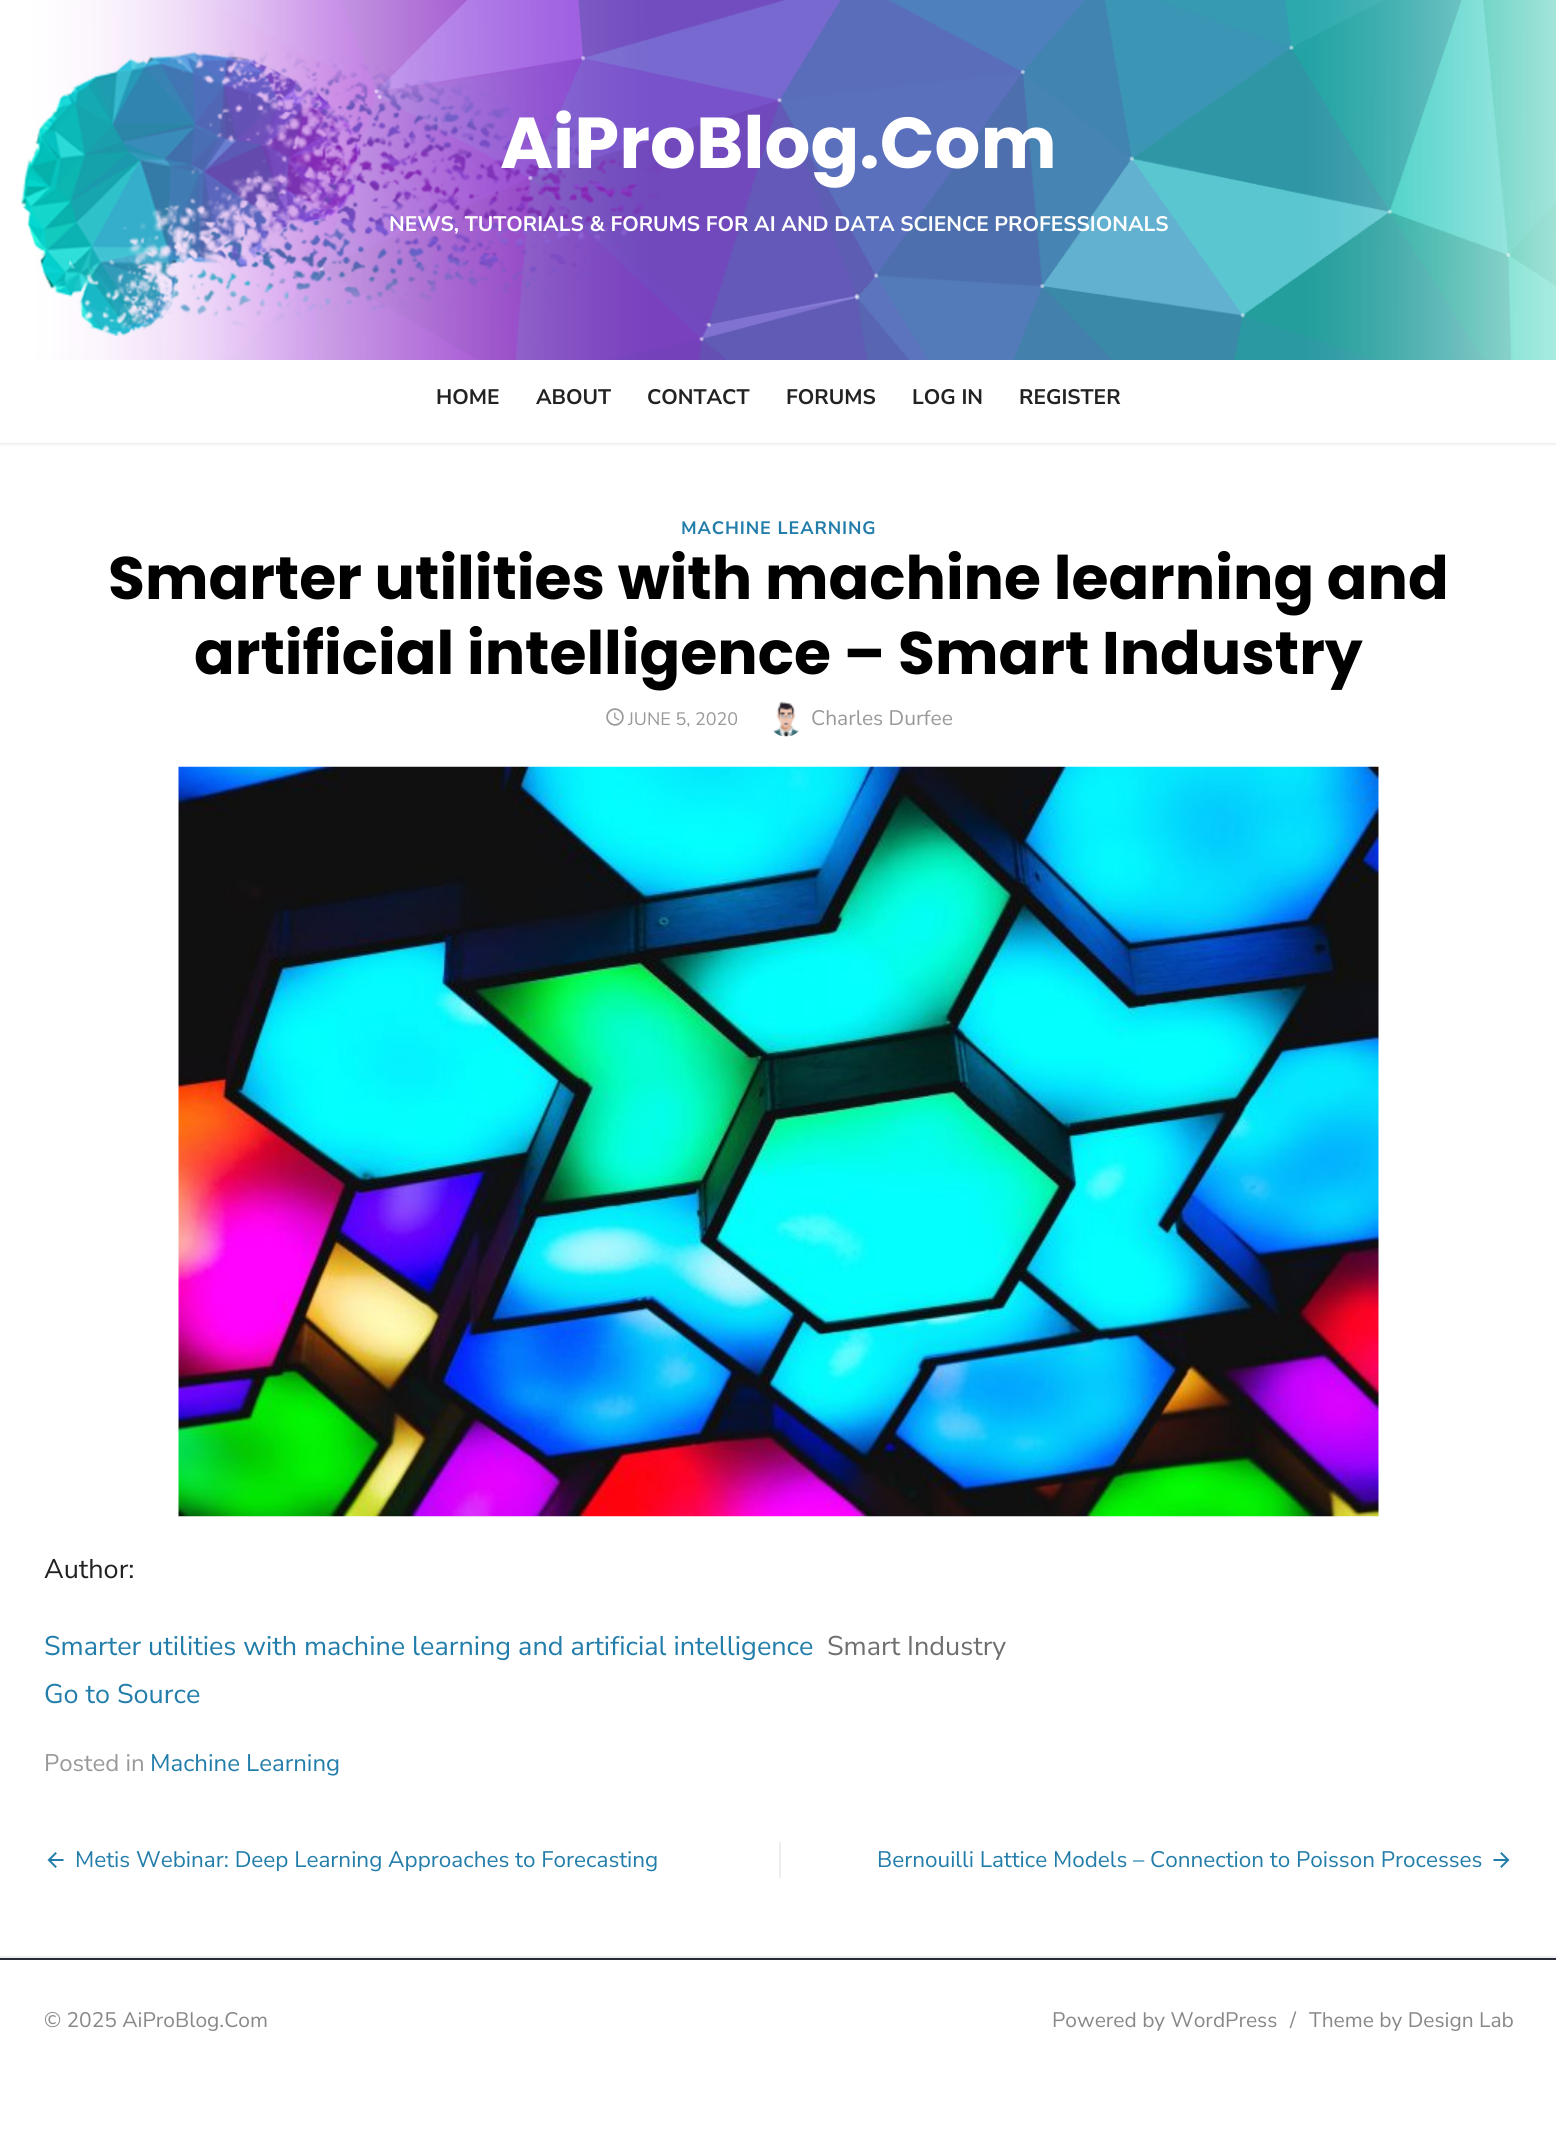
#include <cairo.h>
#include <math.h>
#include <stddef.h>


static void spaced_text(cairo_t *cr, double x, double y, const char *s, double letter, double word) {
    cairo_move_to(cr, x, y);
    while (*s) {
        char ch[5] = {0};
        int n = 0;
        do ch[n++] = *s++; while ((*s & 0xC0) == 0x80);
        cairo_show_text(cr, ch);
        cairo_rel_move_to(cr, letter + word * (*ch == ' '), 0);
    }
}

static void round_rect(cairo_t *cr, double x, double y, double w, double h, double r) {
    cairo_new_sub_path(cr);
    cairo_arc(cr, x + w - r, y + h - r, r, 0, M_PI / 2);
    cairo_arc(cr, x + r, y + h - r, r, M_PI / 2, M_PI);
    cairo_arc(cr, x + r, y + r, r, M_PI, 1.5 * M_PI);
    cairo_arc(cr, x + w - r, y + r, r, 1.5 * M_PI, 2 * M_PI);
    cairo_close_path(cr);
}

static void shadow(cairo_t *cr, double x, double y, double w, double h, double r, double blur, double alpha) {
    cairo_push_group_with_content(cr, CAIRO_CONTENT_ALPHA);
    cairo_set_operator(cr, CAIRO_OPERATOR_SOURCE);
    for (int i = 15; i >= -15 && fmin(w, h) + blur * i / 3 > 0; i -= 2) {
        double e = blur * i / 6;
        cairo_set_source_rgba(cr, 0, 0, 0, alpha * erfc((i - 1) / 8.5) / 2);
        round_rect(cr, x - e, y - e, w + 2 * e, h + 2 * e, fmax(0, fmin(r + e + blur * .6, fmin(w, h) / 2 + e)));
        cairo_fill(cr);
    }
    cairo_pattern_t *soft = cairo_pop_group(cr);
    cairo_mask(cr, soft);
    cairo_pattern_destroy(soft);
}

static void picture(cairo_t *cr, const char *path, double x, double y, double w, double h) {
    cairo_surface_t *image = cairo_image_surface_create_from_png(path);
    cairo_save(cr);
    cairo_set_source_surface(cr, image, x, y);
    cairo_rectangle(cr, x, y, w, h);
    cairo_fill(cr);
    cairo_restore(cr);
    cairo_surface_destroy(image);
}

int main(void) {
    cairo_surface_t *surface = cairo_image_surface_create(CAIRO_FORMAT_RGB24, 1556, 2156);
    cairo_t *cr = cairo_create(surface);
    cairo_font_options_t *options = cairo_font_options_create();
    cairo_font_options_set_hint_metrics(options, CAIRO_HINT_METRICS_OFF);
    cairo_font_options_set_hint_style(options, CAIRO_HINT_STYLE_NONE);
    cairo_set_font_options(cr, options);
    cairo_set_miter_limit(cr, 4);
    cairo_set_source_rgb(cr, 1, 1, 1);
    cairo_paint(cr);
    cairo_set_source_rgb(cr, 0, 0, 0);
    shadow(cr, 0, 362, 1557, 82, 0, 1.5, 0.1);
    picture(cr, "img1.png", 21, 0, 1535, 360);
    cairo_select_font_face(cr, "Poppins", CAIRO_FONT_SLANT_NORMAL, CAIRO_FONT_WEIGHT_BOLD);
    cairo_set_font_size(cr, 72);
    cairo_set_source_rgb(cr, 1, 1, 1);
    cairo_move_to(cr, 500, 168);
    cairo_show_text(cr, "AiProBlog.Com");
    cairo_select_font_face(cr, "Nunito Sans", CAIRO_FONT_SLANT_NORMAL, CAIRO_FONT_WEIGHT_BOLD);
    cairo_set_font_size(cr, 21);
    cairo_move_to(cr, 389, 231);
    cairo_show_text(cr, "NEWS, TUTORIALS & FORUMS FOR AI AND DATA SCIENCE PROFESSIONALS");
    cairo_rectangle(cr, 0, 360, 1556, 83);
    cairo_fill(cr);
    cairo_set_source_rgb(cr, 0.133, 0.133, 0.133);
    cairo_move_to(cr, 436, 404);
    cairo_show_text(cr, "HOME");
    cairo_move_to(cr, 536, 404);
    cairo_show_text(cr, "ABOUT");
    cairo_move_to(cr, 647, 404);
    cairo_show_text(cr, "CONTACT");
    cairo_move_to(cr, 786, 404);
    cairo_show_text(cr, "FORUMS");
    cairo_move_to(cr, 912, 404);
    cairo_show_text(cr, "LOG IN");
    cairo_move_to(cr, 1019, 404);
    cairo_show_text(cr, "REGISTER");
    cairo_set_font_size(cr, 18);
    cairo_set_source_rgb(cr, 0.133, 0.49, 0.667);
    spaced_text(cr, 681, 534, "MACHINE LEARNING", 0.9, 0);
    cairo_select_font_face(cr, "Poppins", CAIRO_FONT_SLANT_NORMAL, CAIRO_FONT_WEIGHT_BOLD);
    cairo_set_font_size(cr, 60);
    cairo_set_source_rgb(cr, 0, 0, 0);
    cairo_move_to(cr, 108, 599);
    cairo_show_text(cr, "Smarter utilities with machine learning and");
    cairo_move_to(cr, 194, 674);
    cairo_show_text(cr, "artificial intelligence – Smart Industry");
    picture(cr, "img2.png", 606, 708, 18, 18);
    cairo_select_font_face(cr, "Nunito Sans", CAIRO_FONT_SLANT_NORMAL, CAIRO_FONT_WEIGHT_NORMAL);
    cairo_set_font_size(cr, 18);
    cairo_set_source_rgb(cr, 0.6, 0.6, 0.6);
    cairo_move_to(cr, 628, 725);
    cairo_show_text(cr, "JUNE 5, 2020");
    picture(cr, "img3.png", 772, 701, 28, 36);
    cairo_set_font_size(cr, 21);
    cairo_move_to(cr, 811, 725);
    cairo_show_text(cr, "Charles Durfee");
    picture(cr, "img4.png", 178, 766, 1201, 751);
    cairo_set_font_size(cr, 27);
    cairo_set_source_rgb(cr, 0.133, 0.133, 0.133);
    cairo_move_to(cr, 44, 1578);
    cairo_show_text(cr, "Author:");
    cairo_set_source_rgb(cr, 0.133, 0.49, 0.667);
    cairo_move_to(cr, 44, 1655);
    cairo_show_text(cr, "Smarter utilities with machine learning and artificial intelligence");
    cairo_set_source_rgb(cr, 0.435, 0.435, 0.435);
    cairo_move_to(cr, 827, 1655);
    cairo_show_text(cr, "Smart Industry");
    cairo_set_source_rgb(cr, 0.133, 0.49, 0.667);
    cairo_move_to(cr, 44, 1703);
    cairo_show_text(cr, "Go to Source");
    cairo_set_font_size(cr, 24);
    cairo_set_source_rgb(cr, 0.6, 0.6, 0.6);
    cairo_move_to(cr, 44, 1771);
    cairo_show_text(cr, "Posted in");
    cairo_set_source_rgb(cr, 0.133, 0.49, 0.667);
    cairo_move_to(cr, 150, 1771);
    cairo_show_text(cr, "Machine Learning");
    cairo_set_source_rgb(cr, 0.933, 0.933, 0.933);
    cairo_rectangle(cr, 779, 1842, 2, 36);
    cairo_fill(cr);
    picture(cr, "img5.png", 47, 1852, 17, 16);
    cairo_set_font_size(cr, 22.5);
    cairo_set_source_rgb(cr, 0.133, 0.49, 0.667);
    cairo_move_to(cr, 75, 1867);
    cairo_show_text(cr, "Metis Webinar: Deep Learning Approaches to Forecasting");
    cairo_move_to(cr, 877, 1867);
    cairo_show_text(cr, "Bernouilli Lattice Models – Connection to Poisson Processes");
    picture(cr, "img6.png", 1493, 1852, 17, 16);
    cairo_set_source_rgb(cr, 0.933, 0.933, 0.933);
    cairo_rectangle(cr, 0, 1956, 1556, 2);
    cairo_fill(cr);
    cairo_set_source_rgb(cr, 0.157, 0.173, 0.212);
    cairo_rectangle(cr, 0, 1958, 1556, 2);
    cairo_fill(cr);
    cairo_set_font_size(cr, 21);
    cairo_set_source_rgb(cr, 0.533, 0.533, 0.533);
    cairo_move_to(cr, 44, 2027);
    cairo_show_text(cr, "© 2025 AiProBlog.Com");
    cairo_move_to(cr, 1052, 2027);
    cairo_show_text(cr, "Powered by WordPress");
    cairo_move_to(cr, 1290, 2027);
    cairo_show_text(cr, "/");
    cairo_move_to(cr, 1309, 2027);
    cairo_show_text(cr, "Theme by Design Lab");
    cairo_surface_write_to_png(surface, "page.png");
    cairo_font_options_destroy(options);
    cairo_destroy(cr);
    cairo_surface_destroy(surface);
    return 0;
}
